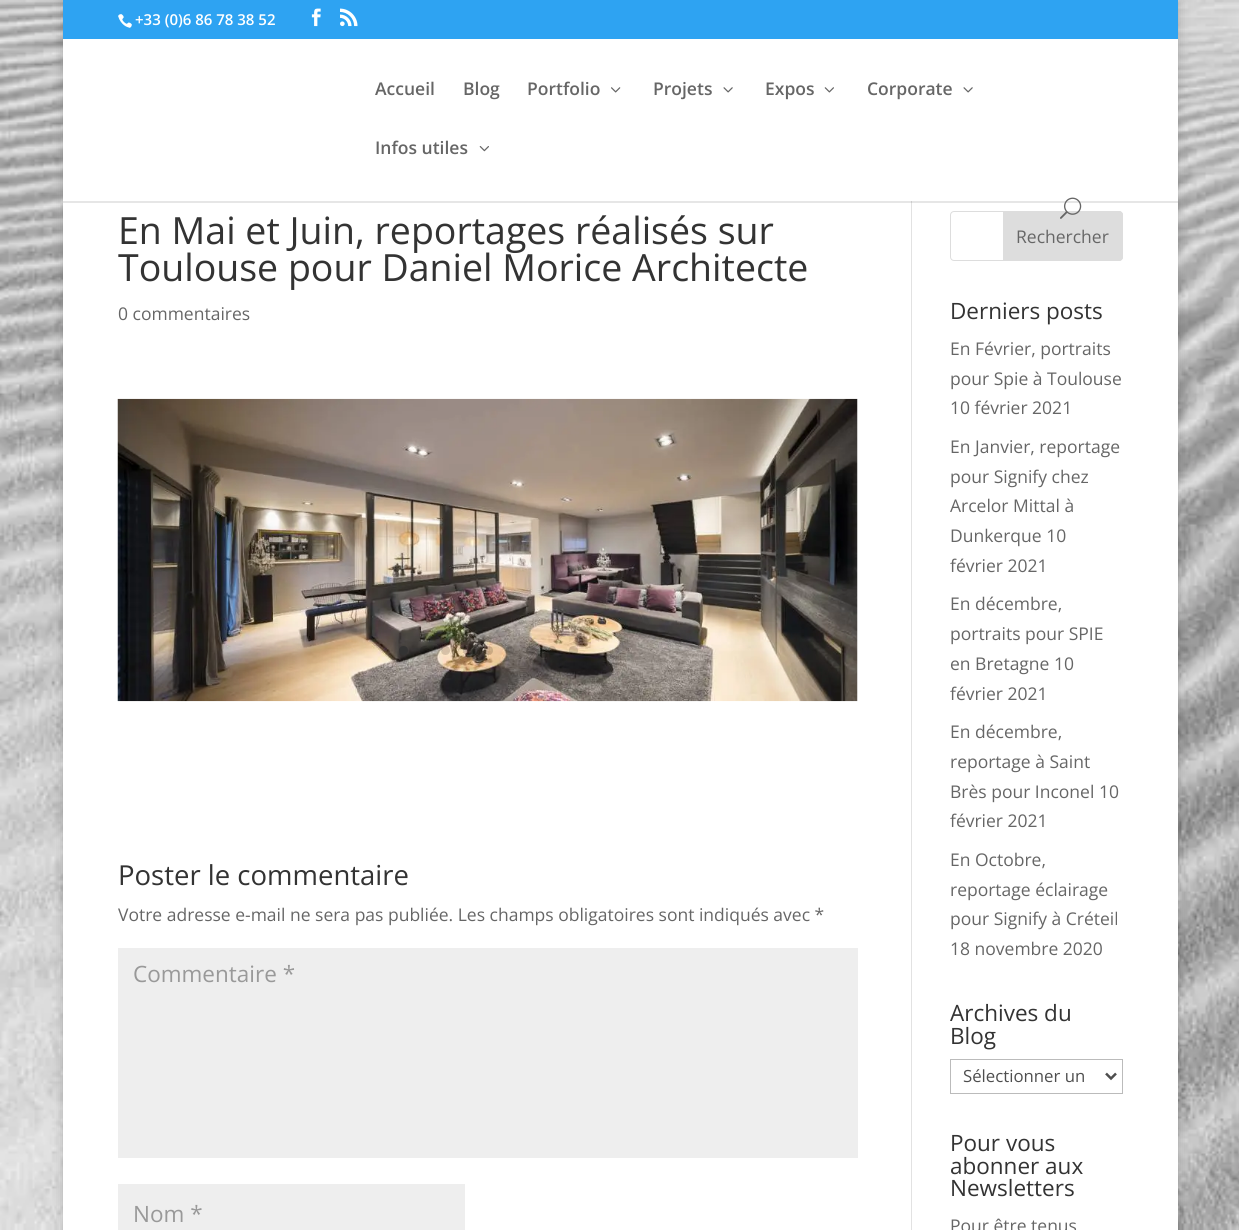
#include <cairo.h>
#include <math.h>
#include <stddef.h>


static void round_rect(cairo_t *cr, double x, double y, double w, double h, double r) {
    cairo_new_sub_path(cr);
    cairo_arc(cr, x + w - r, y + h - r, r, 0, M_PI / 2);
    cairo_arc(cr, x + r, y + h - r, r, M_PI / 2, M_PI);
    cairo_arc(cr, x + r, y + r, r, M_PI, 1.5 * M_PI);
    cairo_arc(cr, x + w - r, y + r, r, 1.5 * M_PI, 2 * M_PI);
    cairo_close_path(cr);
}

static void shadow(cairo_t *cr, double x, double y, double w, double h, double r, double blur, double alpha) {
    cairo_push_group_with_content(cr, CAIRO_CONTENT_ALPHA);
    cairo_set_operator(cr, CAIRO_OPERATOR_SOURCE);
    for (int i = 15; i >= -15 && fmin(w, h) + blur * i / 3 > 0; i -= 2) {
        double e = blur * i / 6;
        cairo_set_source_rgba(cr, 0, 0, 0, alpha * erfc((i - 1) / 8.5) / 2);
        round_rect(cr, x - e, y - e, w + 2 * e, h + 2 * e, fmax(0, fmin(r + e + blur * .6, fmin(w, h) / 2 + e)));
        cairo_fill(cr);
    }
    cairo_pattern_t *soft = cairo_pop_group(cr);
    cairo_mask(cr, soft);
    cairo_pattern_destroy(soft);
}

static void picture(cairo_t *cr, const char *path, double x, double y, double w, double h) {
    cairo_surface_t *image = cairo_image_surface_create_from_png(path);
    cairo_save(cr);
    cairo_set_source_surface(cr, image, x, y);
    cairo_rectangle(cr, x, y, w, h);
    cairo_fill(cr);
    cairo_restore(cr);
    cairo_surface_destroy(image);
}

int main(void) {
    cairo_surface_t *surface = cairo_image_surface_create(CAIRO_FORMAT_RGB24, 1239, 1230);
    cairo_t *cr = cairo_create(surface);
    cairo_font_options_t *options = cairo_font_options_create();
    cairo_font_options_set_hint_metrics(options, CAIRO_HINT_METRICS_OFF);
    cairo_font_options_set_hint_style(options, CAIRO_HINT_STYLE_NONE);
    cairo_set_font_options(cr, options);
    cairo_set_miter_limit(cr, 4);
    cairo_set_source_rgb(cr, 1, 1, 1);
    cairo_paint(cr);
    picture(cr, "img1.png", 0, 0, 1239, 1230);
    cairo_set_source_rgb(cr, 0, 0, 0);
    shadow(cr, 63, 0, 1115, 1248, 0, 6, 0.2);
    cairo_set_source_rgb(cr, 0.18, 0.639, 0.949);
    cairo_rectangle(cr, 63, 0, 1115, 39);
    cairo_fill(cr);
    picture(cr, "img2.png", 118, 14, 14, 14);
    cairo_select_font_face(cr, "Open Sans SemiBold", CAIRO_FONT_SLANT_NORMAL, CAIRO_FONT_WEIGHT_NORMAL);
    cairo_set_font_size(cr, 15);
    cairo_set_source_rgb(cr, 1, 1, 1);
    cairo_move_to(cr, 135, 25);
    cairo_show_text(cr, "+33 (0)6 86 78 38 52");
    picture(cr, "img3.png", 311, 8, 10, 19);
    picture(cr, "img4.png", 340, 8, 18, 19);
    cairo_rectangle(cr, 63, 39, 1115, 1191);
    cairo_fill(cr);
    cairo_set_source_rgb(cr, 0.886, 0.886, 0.886);
    cairo_rectangle(cr, 911, 201, 1, 1029);
    cairo_fill(cr);
    cairo_set_source_rgba(cr, 0, 0, 0, 0.1);
    cairo_new_path(cr);
    cairo_move_to(cr, 63, 201);
    cairo_line_to(cr, 63, 203);
    cairo_line_to(cr, 1178, 203);
    cairo_line_to(cr, 1178, 40);
    cairo_line_to(cr, 1178, 201);
    cairo_close_path(cr);
    cairo_fill(cr);
    cairo_set_font_size(cr, 17.5);
    cairo_set_source_rgb(cr, 0.4, 0.4, 0.4);
    cairo_move_to(cr, 375, 95);
    cairo_show_text(cr, "Accueil");
    cairo_move_to(cr, 463, 95);
    cairo_show_text(cr, "Blog");
    cairo_move_to(cr, 527, 95);
    cairo_show_text(cr, "Portfolio");
    picture(cr, "img5.png", 611, 87, 10, 6);
    cairo_move_to(cr, 653, 95);
    cairo_show_text(cr, "Projets");
    picture(cr, "img6.png", 723, 87, 10, 6);
    cairo_move_to(cr, 765, 95);
    cairo_show_text(cr, "Expos");
    picture(cr, "img7.png", 824, 87, 10, 6);
    cairo_move_to(cr, 867, 95);
    cairo_show_text(cr, "Corporate");
    picture(cr, "img6.png", 963, 87, 10, 6);
    cairo_move_to(cr, 375, 154);
    cairo_show_text(cr, "Infos utiles");
    picture(cr, "img8.png", 479, 146, 10, 6);
    round_rect(cr, 950.5, 211.5, 172, 49, 3.5);
    cairo_set_source_rgb(cr, 0.867, 0.867, 0.867);
    cairo_set_line_width(cr, 1);
    cairo_stroke(cr);
    cairo_new_path(cr);
    cairo_move_to(cr, 1003.5, 211.5);
    cairo_line_to(cr, 1119, 211.5);
    cairo_curve_to(cr, 1121, 211.5, 1122.5, 213, 1122.5, 215);
    cairo_line_to(cr, 1122.5, 257);
    cairo_curve_to(cr, 1122.5, 259, 1121, 260.5, 1119, 260.5);
    cairo_line_to(cr, 1003.5, 260.5);
    cairo_close_path(cr);
    cairo_fill_preserve(cr);
    cairo_stroke(cr);
    picture(cr, "img9.png", 1060, 197, 22, 22);
    cairo_select_font_face(cr, "Open Sans", CAIRO_FONT_SLANT_NORMAL, CAIRO_FONT_WEIGHT_NORMAL);
    cairo_set_font_size(cr, 37.5);
    cairo_set_source_rgb(cr, 0.2, 0.2, 0.2);
    cairo_move_to(cr, 118, 244);
    cairo_show_text(cr, "En Mai et Juin, reportages réalisés sur");
    cairo_move_to(cr, 118, 281);
    cairo_show_text(cr, "Toulouse pour Daniel Morice Architecte");
    cairo_set_font_size(cr, 17.5);
    cairo_set_source_rgb(cr, 0.4, 0.4, 0.4);
    cairo_move_to(cr, 118, 320);
    cairo_show_text(cr, "0 commentaires");
    picture(cr, "img10.png", 117, 398, 741, 304);
    cairo_set_source_rgb(cr, 0.2, 0.2, 0.2);
    cairo_arc(cr, 403.5, 650.5, 4.5, 0, 2 * M_PI);
    cairo_fill(cr);
    cairo_set_source_rgba(cr, 0, 0, 0, 0.15);
    cairo_arc(cr, 424.5, 650.5, 4.5, 0, 2 * M_PI);
    cairo_fill(cr);
    cairo_arc(cr, 445.5, 650.5, 4.5, 0, 2 * M_PI);
    cairo_fill(cr);
    round_rect(cr, 463, 646, 8, 9, 4);
    cairo_fill(cr);
    cairo_arc(cr, 488.5, 650.5, 4.5, 0, 2 * M_PI);
    cairo_fill(cr);
    cairo_arc(cr, 509.5, 650.5, 4.5, 0, 2 * M_PI);
    cairo_fill(cr);
    cairo_arc(cr, 530.5, 650.5, 4.5, 0, 2 * M_PI);
    cairo_fill(cr);
    round_rect(cr, 548, 646, 8, 9, 4);
    cairo_fill(cr);
    cairo_arc(cr, 573.5, 650.5, 4.5, 0, 2 * M_PI);
    cairo_fill(cr);
    cairo_set_font_size(cr, 27.5);
    cairo_set_source_rgb(cr, 0.2, 0.2, 0.2);
    cairo_move_to(cr, 118, 885);
    cairo_show_text(cr, "Poster le commentaire");
    cairo_set_font_size(cr, 17.5);
    cairo_set_source_rgb(cr, 0.4, 0.4, 0.4);
    cairo_move_to(cr, 118, 921);
    cairo_show_text(cr, "Votre adresse e-mail ne sera pas publiée. Les champs obligatoires sont indiqués avec *");
    cairo_set_source_rgb(cr, 0.933, 0.933, 0.933);
    cairo_rectangle(cr, 118, 948, 740, 210);
    cairo_fill(cr);
    cairo_set_font_size(cr, 22.5);
    cairo_set_source_rgb(cr, 0.6, 0.6, 0.6);
    cairo_move_to(cr, 133, 982);
    cairo_show_text(cr, "Commentaire *");
    cairo_set_source_rgb(cr, 0.933, 0.933, 0.933);
    cairo_rectangle(cr, 118, 1184, 347, 46);
    cairo_fill(cr);
    cairo_set_source_rgb(cr, 0.6, 0.6, 0.6);
    cairo_move_to(cr, 133, 1222);
    cairo_show_text(cr, "Nom *");
    cairo_set_font_size(cr, 17.5);
    cairo_set_source_rgb(cr, 0.4, 0.4, 0.4);
    cairo_move_to(cr, 1016, 243);
    cairo_show_text(cr, "Rechercher");
    cairo_set_font_size(cr, 22.5);
    cairo_set_source_rgb(cr, 0.2, 0.2, 0.2);
    cairo_move_to(cr, 950, 319);
    cairo_show_text(cr, "Derniers posts");
    cairo_set_font_size(cr, 17.5);
    cairo_set_source_rgb(cr, 0.4, 0.4, 0.4);
    cairo_move_to(cr, 950, 355);
    cairo_show_text(cr, "En Février, portraits");
    cairo_move_to(cr, 950, 385);
    cairo_show_text(cr, "pour Spie à Toulouse");
    cairo_move_to(cr, 950, 414);
    cairo_show_text(cr, "10 février 2021");
    cairo_move_to(cr, 950, 453);
    cairo_show_text(cr, "En Janvier, reportage");
    cairo_move_to(cr, 950, 483);
    cairo_show_text(cr, "pour Signify chez");
    cairo_move_to(cr, 950, 512);
    cairo_show_text(cr, "Arcelor Mittal à");
    cairo_move_to(cr, 950, 542);
    cairo_show_text(cr, "Dunkerque 10");
    cairo_move_to(cr, 950, 572);
    cairo_show_text(cr, "février 2021");
    cairo_move_to(cr, 950, 610);
    cairo_show_text(cr, "En décembre,");
    cairo_move_to(cr, 950, 640);
    cairo_show_text(cr, "portraits pour SPIE");
    cairo_move_to(cr, 950, 670);
    cairo_show_text(cr, "en Bretagne 10");
    cairo_move_to(cr, 950, 700);
    cairo_show_text(cr, "février 2021");
    cairo_move_to(cr, 950, 738);
    cairo_show_text(cr, "En décembre,");
    cairo_move_to(cr, 950, 768);
    cairo_show_text(cr, "reportage à Saint");
    cairo_move_to(cr, 950, 798);
    cairo_show_text(cr, "Brès pour Inconel 10");
    cairo_move_to(cr, 950, 827);
    cairo_show_text(cr, "février 2021");
    cairo_move_to(cr, 950, 866);
    cairo_show_text(cr, "En Octobre,");
    cairo_move_to(cr, 950, 896);
    cairo_show_text(cr, "reportage éclairage");
    cairo_move_to(cr, 950, 925);
    cairo_show_text(cr, "pour Signify à Créteil");
    cairo_move_to(cr, 950, 955);
    cairo_show_text(cr, "18 novembre 2020");
    cairo_set_font_size(cr, 22.5);
    cairo_set_source_rgb(cr, 0.2, 0.2, 0.2);
    cairo_move_to(cr, 950, 1021);
    cairo_show_text(cr, "Archives du");
    cairo_move_to(cr, 950, 1044);
    cairo_show_text(cr, "Blog");
    cairo_rectangle(cr, 950.5, 1059.5, 172, 34);
    cairo_set_source_rgb(cr, 0.733, 0.733, 0.733);
    cairo_stroke(cr);
    cairo_new_path(cr);
    cairo_move_to(cr, 1106, 1073.5);
    cairo_line_to(cr, 1111, 1078.5);
    cairo_line_to(cr, 1116, 1073.5);
    cairo_set_source_rgb(cr, 0.306, 0.306, 0.306);
    cairo_set_line_width(cr, 2.5);
    cairo_stroke(cr);
    cairo_set_font_size(cr, 16.75);
    cairo_move_to(cr, 963, 1082);
    cairo_show_text(cr, "Sélectionner un");
    cairo_set_font_size(cr, 22.5);
    cairo_set_source_rgb(cr, 0.2, 0.2, 0.2);
    cairo_move_to(cr, 950, 1151);
    cairo_show_text(cr, "Pour vous");
    cairo_move_to(cr, 950, 1174);
    cairo_show_text(cr, "abonner aux");
    cairo_move_to(cr, 950, 1196);
    cairo_show_text(cr, "Newsletters");
    cairo_set_font_size(cr, 17.5);
    cairo_set_source_rgb(cr, 0.4, 0.4, 0.4);
    cairo_move_to(cr, 950, 1232);
    cairo_show_text(cr, "Pour être tenus");
    cairo_surface_write_to_png(surface, "page.png");
    cairo_font_options_destroy(options);
    cairo_destroy(cr);
    cairo_surface_destroy(surface);
    return 0;
}
